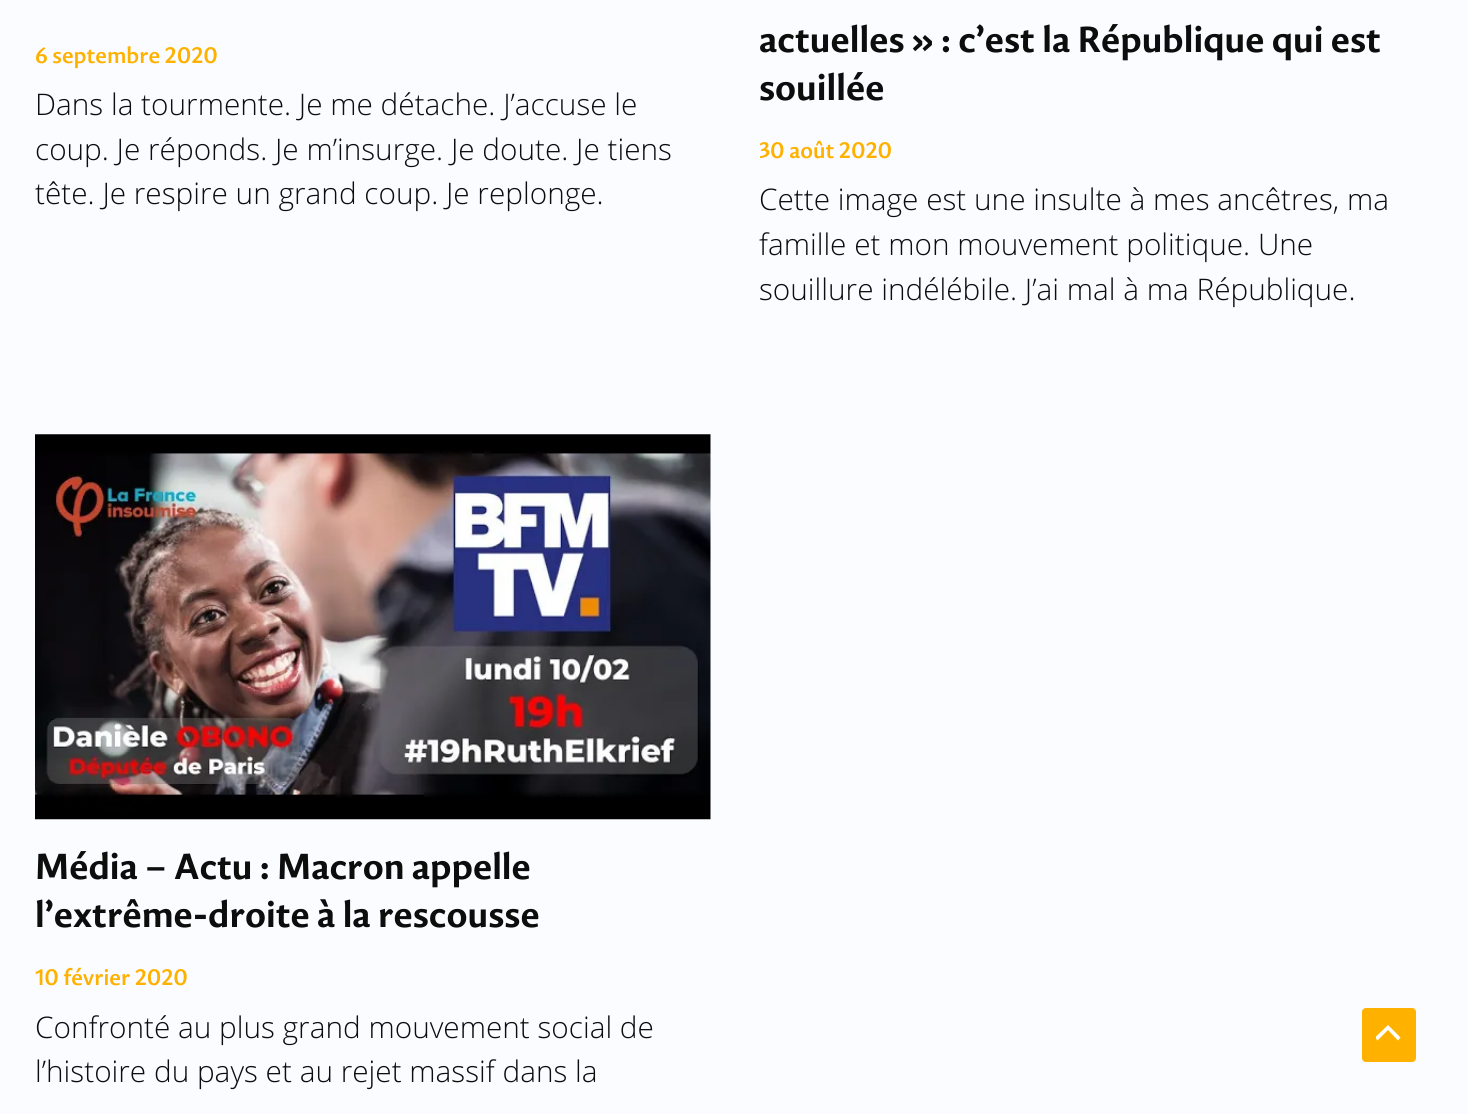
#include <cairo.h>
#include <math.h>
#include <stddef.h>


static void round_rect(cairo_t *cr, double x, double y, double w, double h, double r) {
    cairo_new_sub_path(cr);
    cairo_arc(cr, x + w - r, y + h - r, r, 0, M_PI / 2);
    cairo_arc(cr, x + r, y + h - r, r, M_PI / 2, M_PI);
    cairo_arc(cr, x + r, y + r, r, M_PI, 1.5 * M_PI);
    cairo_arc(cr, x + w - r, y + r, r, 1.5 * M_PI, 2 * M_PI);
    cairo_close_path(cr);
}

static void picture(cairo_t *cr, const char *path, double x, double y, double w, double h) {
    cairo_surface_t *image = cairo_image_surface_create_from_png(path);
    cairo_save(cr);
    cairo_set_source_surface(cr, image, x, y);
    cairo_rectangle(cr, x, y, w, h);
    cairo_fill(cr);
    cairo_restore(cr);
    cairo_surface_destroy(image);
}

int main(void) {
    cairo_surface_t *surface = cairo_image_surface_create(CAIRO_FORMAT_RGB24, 1468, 1114);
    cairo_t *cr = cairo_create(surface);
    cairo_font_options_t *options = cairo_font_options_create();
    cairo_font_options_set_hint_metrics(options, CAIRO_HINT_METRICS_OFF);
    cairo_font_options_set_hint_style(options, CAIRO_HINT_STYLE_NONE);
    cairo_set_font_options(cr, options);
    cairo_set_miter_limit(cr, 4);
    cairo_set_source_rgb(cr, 0.98, 0.988, 1);
    cairo_paint(cr);
    cairo_select_font_face(cr, "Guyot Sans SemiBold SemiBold", CAIRO_FONT_SLANT_NORMAL, CAIRO_FONT_WEIGHT_NORMAL);
    cairo_set_font_size(cr, 22.75);
    cairo_set_source_rgb(cr, 1, 0.694, 0);
    cairo_move_to(cr, 35, 63);
    cairo_show_text(cr, "6 septembre 2020");
    cairo_select_font_face(cr, "Open Sans Light", CAIRO_FONT_SLANT_NORMAL, CAIRO_FONT_WEIGHT_NORMAL);
    cairo_set_font_size(cr, 29.75);
    cairo_set_source_rgb(cr, 0.051, 0.051, 0.051);
    cairo_move_to(cr, 35, 115);
    cairo_show_text(cr, "Dans la tourmente. Je me détache. J’accuse le");
    cairo_move_to(cr, 35, 160);
    cairo_show_text(cr, "coup. Je réponds. Je m’insurge. Je doute. Je tiens");
    cairo_move_to(cr, 35, 204);
    cairo_show_text(cr, "tête. Je respire un grand coup. Je replonge.");
    cairo_save(cr);
    cairo_rectangle(cr, 760, 0, 673, 329);
    cairo_clip(cr);
    cairo_select_font_face(cr, "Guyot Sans", CAIRO_FONT_SLANT_NORMAL, CAIRO_FONT_WEIGHT_BOLD);
    cairo_set_font_size(cr, 36.75);
    cairo_move_to(cr, 759, 52);
    cairo_show_text(cr, "actuelles » : c’est la République qui est");
    cairo_restore(cr);
    cairo_select_font_face(cr, "Guyot Sans", CAIRO_FONT_SLANT_NORMAL, CAIRO_FONT_WEIGHT_BOLD);
    cairo_set_font_size(cr, 36.75);
    cairo_move_to(cr, 759, 100);
    cairo_show_text(cr, "souillée");
    cairo_save(cr);
    cairo_rectangle(cr, 760, 0, 673, 329);
    cairo_clip(cr);
    cairo_select_font_face(cr, "Guyot Sans SemiBold SemiBold", CAIRO_FONT_SLANT_NORMAL, CAIRO_FONT_WEIGHT_NORMAL);
    cairo_set_font_size(cr, 22.75);
    cairo_set_source_rgb(cr, 1, 0.694, 0);
    cairo_move_to(cr, 759, 158);
    cairo_show_text(cr, "30 août 2020");
    cairo_restore(cr);
    cairo_select_font_face(cr, "Open Sans Light", CAIRO_FONT_SLANT_NORMAL, CAIRO_FONT_WEIGHT_NORMAL);
    cairo_set_font_size(cr, 29.75);
    cairo_move_to(cr, 759, 210);
    cairo_show_text(cr, "Cette image est une insulte à mes ancêtres, ma");
    cairo_move_to(cr, 759, 255);
    cairo_show_text(cr, "famille et mon mouvement politique. Une");
    cairo_move_to(cr, 759, 300);
    cairo_show_text(cr, "souillure indélébile. J’ai mal à ma République.");
    picture(cr, "img1.png", 35, 434, 676, 386);
    cairo_select_font_face(cr, "Guyot Sans", CAIRO_FONT_SLANT_NORMAL, CAIRO_FONT_WEIGHT_BOLD);
    cairo_set_font_size(cr, 36.75);
    cairo_move_to(cr, 35, 879);
    cairo_show_text(cr, "Média – Actu : Macron appelle");
    cairo_move_to(cr, 35, 927);
    cairo_show_text(cr, "l’extrême-droite à la rescousse");
    cairo_select_font_face(cr, "Guyot Sans SemiBold SemiBold", CAIRO_FONT_SLANT_NORMAL, CAIRO_FONT_WEIGHT_NORMAL);
    cairo_set_font_size(cr, 22.75);
    cairo_set_source_rgb(cr, 1, 0.694, 0);
    cairo_move_to(cr, 35, 985);
    cairo_show_text(cr, "10 février 2020");
    cairo_select_font_face(cr, "Open Sans Light", CAIRO_FONT_SLANT_NORMAL, CAIRO_FONT_WEIGHT_NORMAL);
    cairo_set_font_size(cr, 29.75);
    cairo_set_source_rgb(cr, 0.051, 0.051, 0.051);
    cairo_move_to(cr, 35, 1038);
    cairo_show_text(cr, "Confronté au plus grand mouvement social de");
    cairo_move_to(cr, 35, 1082);
    cairo_show_text(cr, "l’histoire du pays et au rejet massif dans la");
    cairo_set_source_rgb(cr, 1, 0.694, 0);
    round_rect(cr, 1362, 1008, 54, 54, 4);
    cairo_fill(cr);
    cairo_save(cr);
    cairo_rectangle(cr, 1376, 1022, 26, 21);
    cairo_clip(cr);
    cairo_set_source_rgb(cr, 1, 1, 1);
    cairo_new_path(cr);
    cairo_move_to(cr, 1400.5, 1037.5);
    cairo_line_to(cr, 1388, 1025);
    cairo_line_to(cr, 1375, 1037.5);
    cairo_line_to(cr, 1377.5, 1040.5);
    cairo_line_to(cr, 1388, 1030);
    cairo_line_to(cr, 1398, 1040.5);
    cairo_close_path(cr);
    cairo_fill(cr);
    cairo_restore(cr);
    cairo_surface_write_to_png(surface, "page.png");
    cairo_font_options_destroy(options);
    cairo_destroy(cr);
    cairo_surface_destroy(surface);
    return 0;
}
